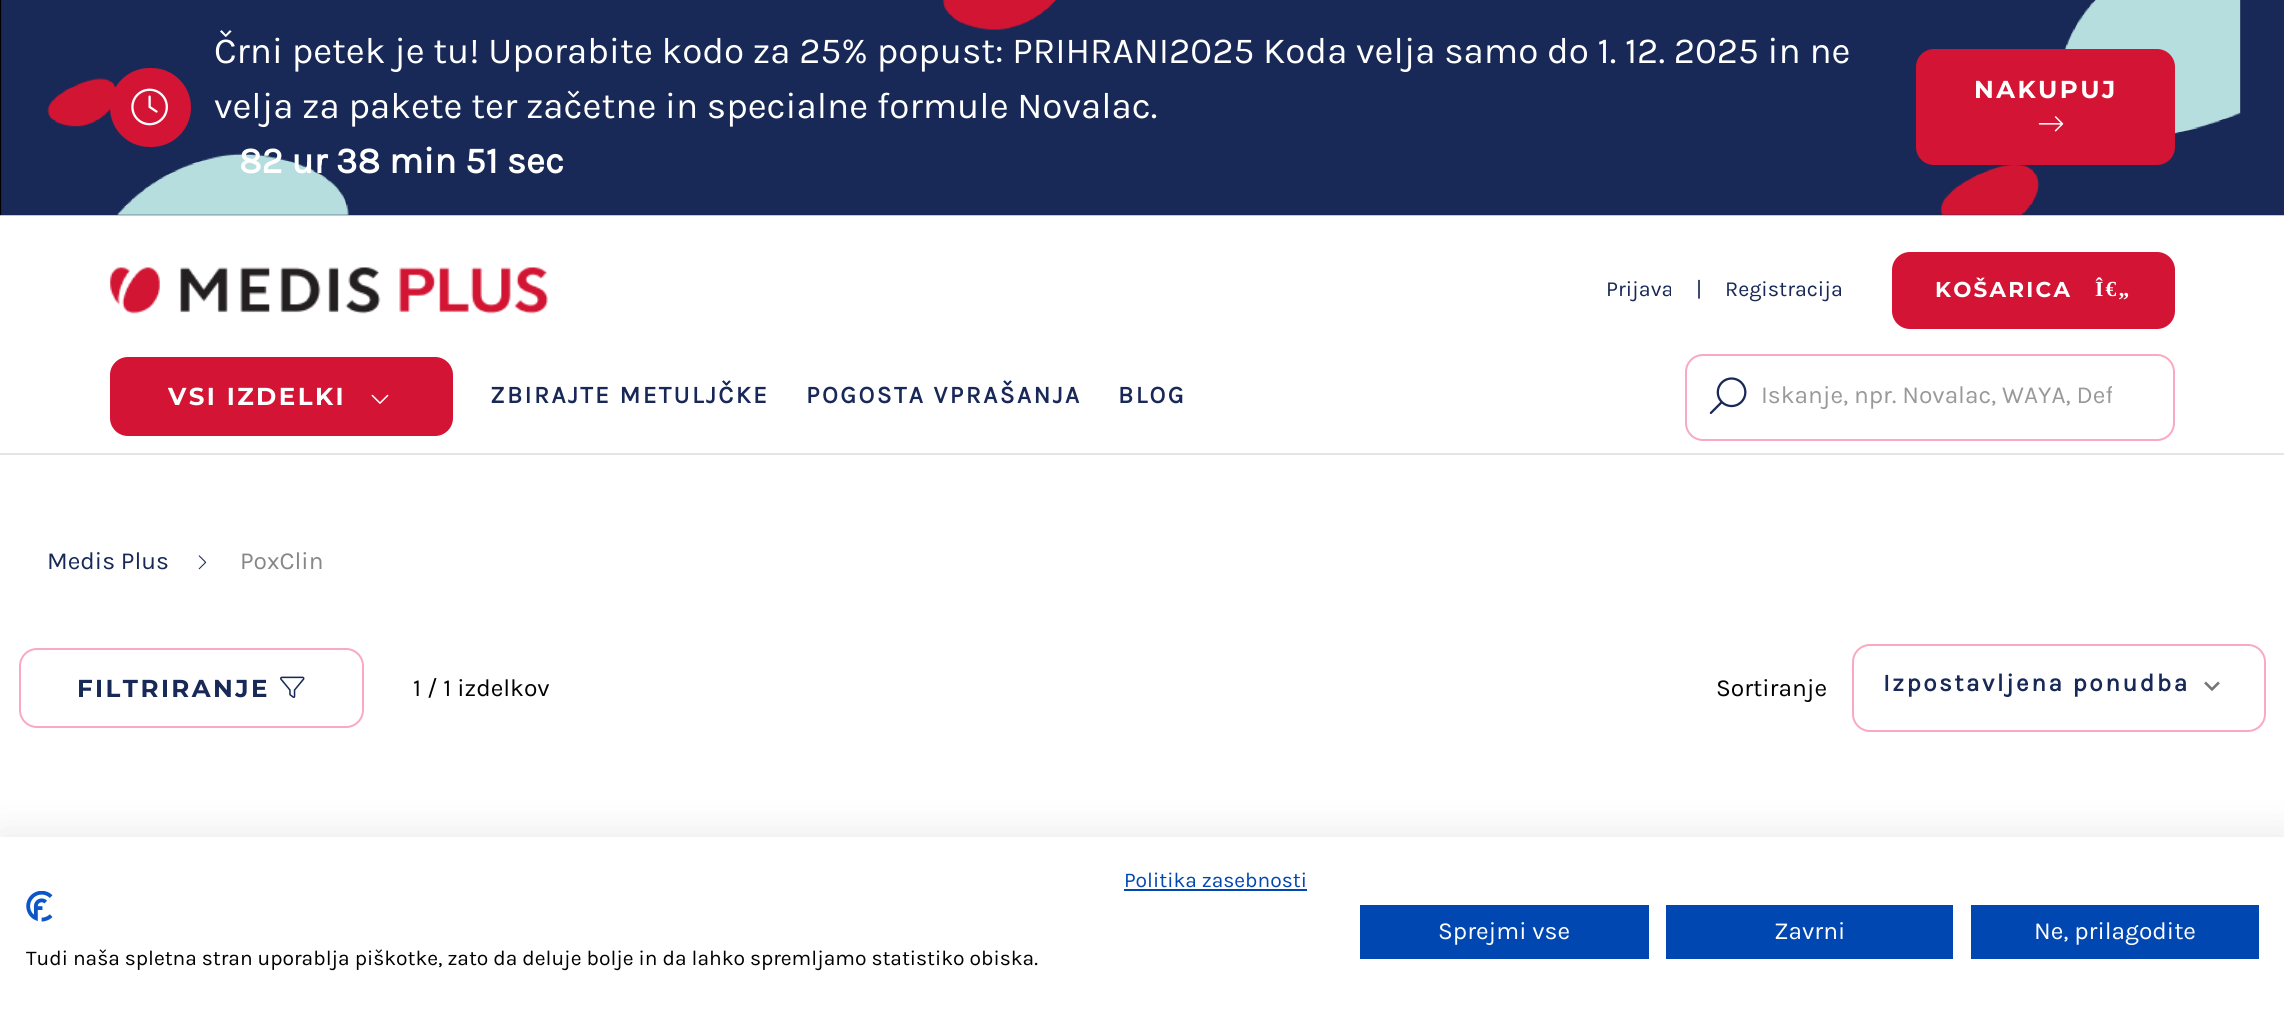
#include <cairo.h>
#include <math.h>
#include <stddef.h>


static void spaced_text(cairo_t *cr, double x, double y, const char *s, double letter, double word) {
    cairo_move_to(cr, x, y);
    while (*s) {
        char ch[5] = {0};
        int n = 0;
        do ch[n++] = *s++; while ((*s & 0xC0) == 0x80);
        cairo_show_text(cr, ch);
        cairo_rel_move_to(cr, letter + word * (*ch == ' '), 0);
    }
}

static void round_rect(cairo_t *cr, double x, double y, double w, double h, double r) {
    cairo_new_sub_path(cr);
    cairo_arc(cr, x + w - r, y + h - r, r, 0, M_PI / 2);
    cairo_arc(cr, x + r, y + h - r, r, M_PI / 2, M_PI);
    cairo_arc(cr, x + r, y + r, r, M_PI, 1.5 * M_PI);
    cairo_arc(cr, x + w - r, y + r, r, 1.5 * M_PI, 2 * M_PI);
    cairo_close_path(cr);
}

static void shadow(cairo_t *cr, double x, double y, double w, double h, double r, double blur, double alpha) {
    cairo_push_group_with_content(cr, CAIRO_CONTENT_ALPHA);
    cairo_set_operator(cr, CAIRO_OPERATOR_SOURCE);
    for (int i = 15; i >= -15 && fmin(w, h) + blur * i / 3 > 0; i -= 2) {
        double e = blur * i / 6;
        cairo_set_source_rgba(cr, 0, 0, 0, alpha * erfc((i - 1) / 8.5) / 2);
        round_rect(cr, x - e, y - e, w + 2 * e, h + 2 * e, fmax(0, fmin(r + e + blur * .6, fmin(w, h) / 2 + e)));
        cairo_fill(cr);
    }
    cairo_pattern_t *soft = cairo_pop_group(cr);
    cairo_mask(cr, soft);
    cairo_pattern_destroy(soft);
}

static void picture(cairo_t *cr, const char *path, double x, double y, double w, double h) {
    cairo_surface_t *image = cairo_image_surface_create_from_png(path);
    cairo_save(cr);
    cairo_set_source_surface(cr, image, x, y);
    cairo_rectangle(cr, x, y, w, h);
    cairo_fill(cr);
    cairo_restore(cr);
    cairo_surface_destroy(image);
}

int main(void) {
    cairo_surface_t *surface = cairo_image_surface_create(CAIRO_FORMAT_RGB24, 2284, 1020);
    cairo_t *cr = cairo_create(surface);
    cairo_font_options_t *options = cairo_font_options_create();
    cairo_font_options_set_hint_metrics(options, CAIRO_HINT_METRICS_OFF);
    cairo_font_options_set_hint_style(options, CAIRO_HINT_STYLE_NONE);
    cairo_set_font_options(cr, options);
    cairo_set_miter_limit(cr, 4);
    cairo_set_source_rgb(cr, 1, 1, 1);
    cairo_paint(cr);
    cairo_set_source_rgb(cr, 0.898, 0.898, 0.898);
    cairo_rectangle(cr, 0, 453, 2284, 2);
    cairo_fill(cr);
    picture(cr, "img1.png", 0, 0, 2284, 216);
    cairo_set_source_rgb(cr, 0.827, 0.082, 0.204);
    round_rect(cr, 110, 68, 81, 79, 39.5);
    cairo_fill(cr);
    picture(cr, "img2.png", 131, 88, 37, 38);
    cairo_select_font_face(cr, "Karla", CAIRO_FONT_SLANT_NORMAL, CAIRO_FONT_WEIGHT_NORMAL);
    cairo_set_font_size(cr, 36.75);
    cairo_set_source_rgb(cr, 1, 1, 1);
    cairo_move_to(cr, 214, 63);
    cairo_show_text(cr, "Črni petek je tu! Uporabite kodo za 25% popust: PRIHRANI2025 Koda velja samo do 1. 12. 2025 in ne");
    cairo_move_to(cr, 214, 118);
    cairo_show_text(cr, "velja za pakete ter začetne in specialne formule Novalac.");
    cairo_select_font_face(cr, "Karla", CAIRO_FONT_SLANT_NORMAL, CAIRO_FONT_WEIGHT_BOLD);
    cairo_move_to(cr, 239, 173);
    cairo_show_text(cr, "82 ur 38 min 51 sec");
    cairo_set_source_rgb(cr, 0.827, 0.082, 0.204);
    round_rect(cr, 1917, 50, 257, 114, 17);
    cairo_fill_preserve(cr);
    cairo_stroke(cr);
    cairo_select_font_face(cr, "Montserrat", CAIRO_FONT_SLANT_NORMAL, CAIRO_FONT_WEIGHT_BOLD);
    cairo_set_font_size(cr, 24.5);
    cairo_set_source_rgb(cr, 1, 1, 1);
    spaced_text(cr, 1974, 98, "NAKUPUJ", 2.45, 0);
    picture(cr, "img3.png", 2038, 116, 26, 16);
    picture(cr, "img4.png", 110, 267, 438, 47);
    cairo_select_font_face(cr, "Karla", CAIRO_FONT_SLANT_NORMAL, CAIRO_FONT_WEIGHT_NORMAL);
    cairo_set_font_size(cr, 21.5);
    cairo_set_source_rgb(cr, 0.094, 0.161, 0.341);
    cairo_move_to(cr, 1606, 296);
    cairo_show_text(cr, "Prijava");
    cairo_move_to(cr, 1696, 296);
    cairo_show_text(cr, "|");
    cairo_move_to(cr, 1725, 296);
    cairo_show_text(cr, "Registracija");
    cairo_set_source_rgb(cr, 0.827, 0.082, 0.204);
    round_rect(cr, 1893, 253, 281, 75, 17);
    cairo_fill_preserve(cr);
    cairo_stroke(cr);
    cairo_select_font_face(cr, "Montserrat", CAIRO_FONT_SLANT_NORMAL, CAIRO_FONT_WEIGHT_BOLD);
    cairo_set_source_rgb(cr, 1, 1, 1);
    spaced_text(cr, 1935, 297, "KOŠARICA", 2.25, 0);
    cairo_select_font_face(cr, "Liberation Serif", CAIRO_FONT_SLANT_NORMAL, CAIRO_FONT_WEIGHT_BOLD);
    spaced_text(cr, 2095, 296, "Î€„", 2.25, 0);
    cairo_set_source_rgb(cr, 0.827, 0.082, 0.204);
    round_rect(cr, 111, 358, 341, 77, 17);
    cairo_fill_preserve(cr);
    cairo_stroke(cr);
    cairo_select_font_face(cr, "Montserrat", CAIRO_FONT_SLANT_NORMAL, CAIRO_FONT_WEIGHT_BOLD);
    cairo_set_font_size(cr, 24.5);
    cairo_set_source_rgb(cr, 1, 1, 1);
    spaced_text(cr, 168, 405, "VSI IZDELKI", 2.45, 0);
    picture(cr, "img5.png", 371, 394, 18, 10);
    cairo_select_font_face(cr, "Karla", CAIRO_FONT_SLANT_NORMAL, CAIRO_FONT_WEIGHT_BOLD);
    cairo_set_source_rgb(cr, 0.094, 0.161, 0.341);
    spaced_text(cr, 490, 403, "ZBIRAJTE METULJČKE", 2.45, 0);
    spaced_text(cr, 806, 403, "POGOSTA VPRAŠANJA", 2.45, 0);
    spaced_text(cr, 1118, 403, "BLOG", 2.45, 0);
    round_rect(cr, 1686, 355, 488, 85, 17);
    cairo_set_source_rgb(cr, 0.973, 0.667, 0.753);
    cairo_stroke(cr);
    picture(cr, "img6.png", 1709, 377, 38, 38);
    cairo_save(cr);
    cairo_rectangle(cr, 1761, 382, 351, 29);
    cairo_clip(cr);
    cairo_select_font_face(cr, "Karla", CAIRO_FONT_SLANT_NORMAL, CAIRO_FONT_WEIGHT_NORMAL);
    cairo_set_source_rgb(cr, 0.6, 0.6, 0.6);
    cairo_move_to(cr, 1761, 403);
    cairo_show_text(cr, "Iskanje, npr. Novalac, WAYA, Def");
    cairo_restore(cr);
    cairo_select_font_face(cr, "Karla", CAIRO_FONT_SLANT_NORMAL, CAIRO_FONT_WEIGHT_NORMAL);
    cairo_set_source_rgb(cr, 0.094, 0.161, 0.341);
    cairo_move_to(cr, 47, 569);
    cairo_show_text(cr, "Medis Plus");
    picture(cr, "img7.png", 198, 555, 9, 15);
    cairo_set_source_rgb(cr, 0.529, 0.529, 0.529);
    cairo_move_to(cr, 240, 569);
    cairo_show_text(cr, "PoxClin");
    round_rect(cr, 20, 649, 343, 78, 17);
    cairo_set_source_rgb(cr, 0.973, 0.667, 0.753);
    cairo_stroke(cr);
    cairo_select_font_face(cr, "Montserrat", CAIRO_FONT_SLANT_NORMAL, CAIRO_FONT_WEIGHT_BOLD);
    cairo_set_source_rgb(cr, 0.094, 0.161, 0.341);
    spaced_text(cr, 77, 697, "FILTRIRANJE", 2.45, 0);
    picture(cr, "img8.png", 280, 676, 25, 22);
    cairo_select_font_face(cr, "Karla", CAIRO_FONT_SLANT_NORMAL, CAIRO_FONT_WEIGHT_NORMAL);
    cairo_set_source_rgb(cr, 0, 0, 0);
    cairo_move_to(cr, 413, 696);
    cairo_show_text(cr, "1 / 1 izdelkov");
    cairo_move_to(cr, 1716, 696);
    cairo_show_text(cr, "Sortiranje");
    round_rect(cr, 1853, 645, 412, 86, 17);
    cairo_set_source_rgb(cr, 0.973, 0.667, 0.753);
    cairo_stroke(cr);
    picture(cr, "img9.png", 2204, 681, 16, 10);
    cairo_select_font_face(cr, "Karla", CAIRO_FONT_SLANT_NORMAL, CAIRO_FONT_WEIGHT_BOLD);
    cairo_set_source_rgb(cr, 0.094, 0.161, 0.341);
    spaced_text(cr, 1883, 691, "Izpostavljena ponudba", 2.45, 0);
    cairo_set_source_rgb(cr, 0, 0, 0);
    shadow(cr, 0, 837, 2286, 183, 0, 21, 0.1);
    cairo_set_source_rgb(cr, 1, 1, 1);
    cairo_rectangle(cr, 0, 837, 2284, 183);
    cairo_fill(cr);
    cairo_select_font_face(cr, "Karla", CAIRO_FONT_SLANT_NORMAL, CAIRO_FONT_WEIGHT_NORMAL);
    cairo_set_font_size(cr, 21);
    cairo_set_source_rgb(cr, 0, 0.278, 0.698);
    cairo_move_to(cr, 1124, 887);
    cairo_show_text(cr, "Politika zasebnosti");
    cairo_rectangle(cr, 1124, 889, 183, 2);
    cairo_fill(cr);
    cairo_rectangle(cr, 1360, 905, 289, 54);
    cairo_fill(cr);
    cairo_set_font_size(cr, 24.5);
    cairo_set_source_rgb(cr, 1, 1, 1);
    cairo_move_to(cr, 1438, 939);
    cairo_show_text(cr, "Sprejmi vse");
    cairo_set_source_rgb(cr, 0, 0.278, 0.698);
    cairo_rectangle(cr, 1666, 905, 287, 54);
    cairo_fill(cr);
    cairo_set_source_rgb(cr, 1, 1, 1);
    cairo_move_to(cr, 1774, 939);
    cairo_show_text(cr, "Zavrni");
    cairo_set_source_rgb(cr, 0, 0.278, 0.698);
    cairo_rectangle(cr, 1971, 905, 288, 54);
    cairo_fill(cr);
    cairo_set_source_rgb(cr, 1, 1, 1);
    cairo_move_to(cr, 2034, 939);
    cairo_show_text(cr, "Ne, prilagodite");
    picture(cr, "img10.png", 26, 891, 27, 31);
    cairo_set_font_size(cr, 21);
    cairo_set_source_rgb(cr, 0, 0, 0);
    cairo_move_to(cr, 26, 965);
    cairo_show_text(cr, "Tudi naša spletna stran uporablja piškotke, zato da deluje bolje in da lahko spremljamo statistiko obiska.");
    cairo_surface_write_to_png(surface, "page.png");
    cairo_font_options_destroy(options);
    cairo_destroy(cr);
    cairo_surface_destroy(surface);
    return 0;
}
